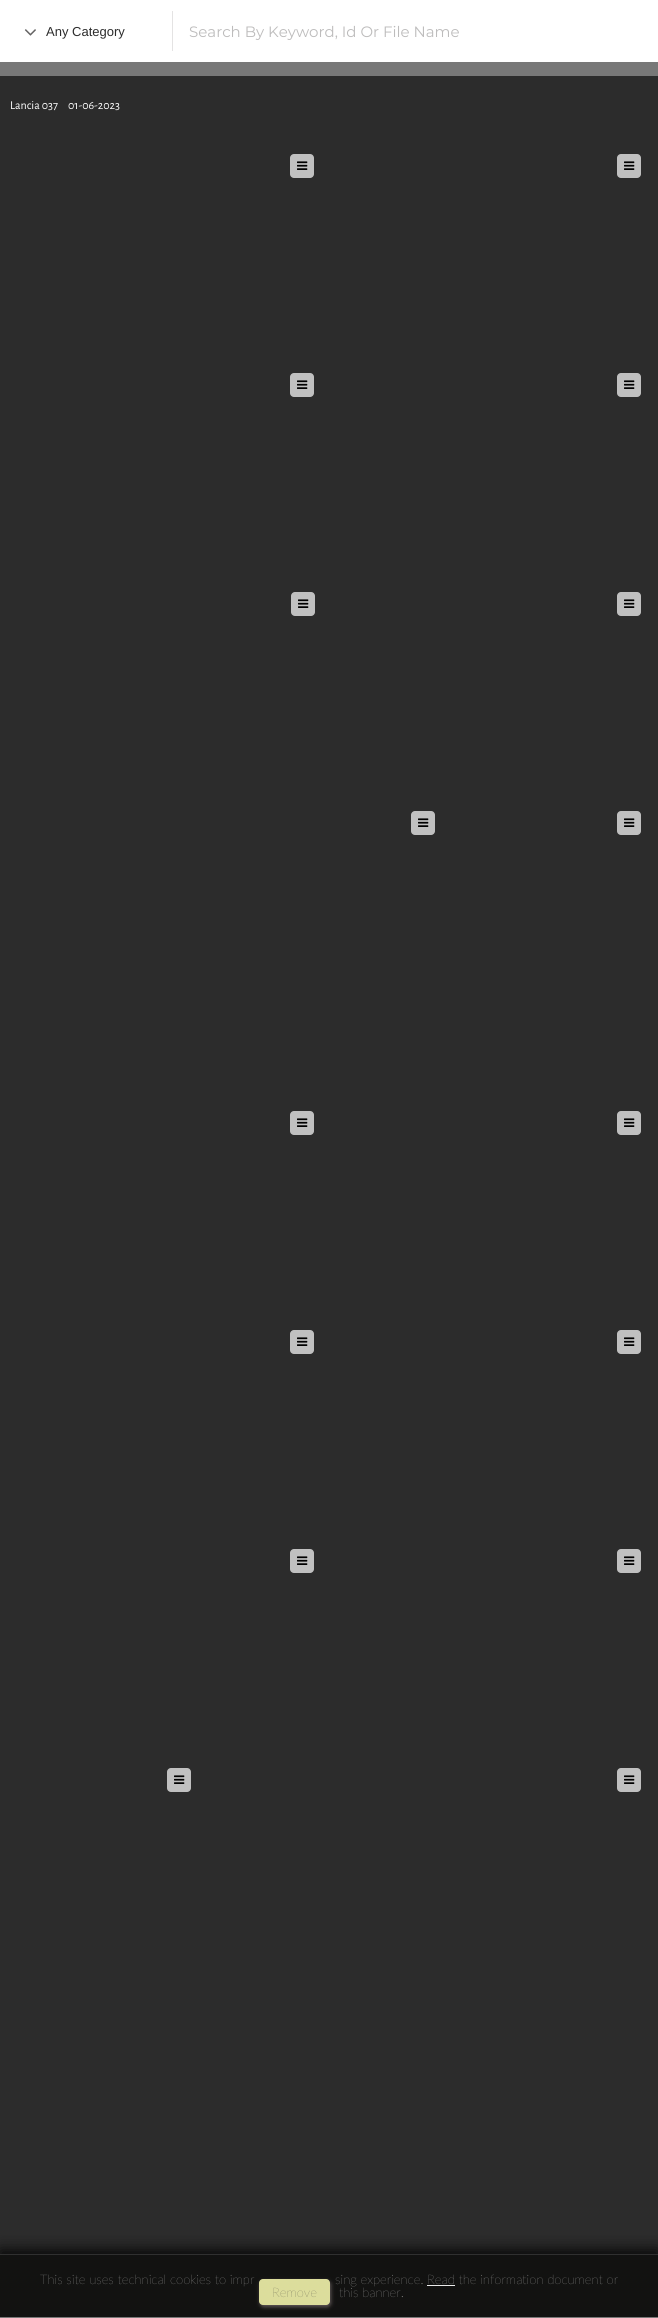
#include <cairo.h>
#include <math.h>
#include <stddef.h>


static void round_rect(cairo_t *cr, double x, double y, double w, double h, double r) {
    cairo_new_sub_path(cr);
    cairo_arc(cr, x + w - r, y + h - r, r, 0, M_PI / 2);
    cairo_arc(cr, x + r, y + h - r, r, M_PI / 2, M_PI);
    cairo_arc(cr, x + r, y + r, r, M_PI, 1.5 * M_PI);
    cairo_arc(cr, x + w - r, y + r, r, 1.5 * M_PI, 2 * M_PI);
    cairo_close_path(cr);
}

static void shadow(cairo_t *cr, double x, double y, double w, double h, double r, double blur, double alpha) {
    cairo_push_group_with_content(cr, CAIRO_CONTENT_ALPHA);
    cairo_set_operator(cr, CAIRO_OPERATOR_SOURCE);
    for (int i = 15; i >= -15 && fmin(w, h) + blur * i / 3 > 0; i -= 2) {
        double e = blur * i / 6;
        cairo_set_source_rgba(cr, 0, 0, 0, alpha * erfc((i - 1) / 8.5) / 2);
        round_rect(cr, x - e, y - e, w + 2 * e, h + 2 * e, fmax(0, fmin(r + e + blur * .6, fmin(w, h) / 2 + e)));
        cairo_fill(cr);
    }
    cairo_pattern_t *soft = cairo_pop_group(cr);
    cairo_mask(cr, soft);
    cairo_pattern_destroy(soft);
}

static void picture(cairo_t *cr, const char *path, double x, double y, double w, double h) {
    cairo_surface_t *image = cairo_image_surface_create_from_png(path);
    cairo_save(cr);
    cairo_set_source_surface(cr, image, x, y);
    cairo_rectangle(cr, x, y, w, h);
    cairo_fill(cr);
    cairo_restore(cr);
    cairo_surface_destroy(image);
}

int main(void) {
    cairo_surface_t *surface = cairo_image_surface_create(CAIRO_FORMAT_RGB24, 658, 2318);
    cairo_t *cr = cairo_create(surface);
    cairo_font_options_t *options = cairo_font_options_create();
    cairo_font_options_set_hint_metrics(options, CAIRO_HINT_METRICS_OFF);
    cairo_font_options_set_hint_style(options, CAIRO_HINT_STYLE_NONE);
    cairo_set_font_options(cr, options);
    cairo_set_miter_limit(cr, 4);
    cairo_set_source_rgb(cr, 0.173, 0.173, 0.173);
    cairo_paint(cr);
    cairo_rectangle(cr, 0.5, 0.5, 657, 61);
    cairo_set_source_rgb(cr, 1, 1, 1);
    cairo_set_line_width(cr, 1);
    cairo_stroke(cr);
    cairo_rectangle(cr, 1, 1, 656, 60);
    cairo_fill(cr);
    picture(cr, "img1.png", 24, 29, 12, 7);
    cairo_set_source_rgb(cr, 0.894, 0.89, 0.89);
    cairo_rectangle(cr, 172, 11, 1, 40);
    cairo_fill(cr);
    cairo_select_font_face(cr, "Liberation Sans", CAIRO_FONT_SLANT_NORMAL, CAIRO_FONT_WEIGHT_NORMAL);
    cairo_set_font_size(cr, 13);
    cairo_set_source_rgb(cr, 0.173, 0.173, 0.173);
    cairo_move_to(cr, 46, 36);
    cairo_show_text(cr, "Any Category");
    cairo_select_font_face(cr, "Montserrat", CAIRO_FONT_SLANT_NORMAL, CAIRO_FONT_WEIGHT_NORMAL);
    cairo_set_font_size(cr, 15);
    cairo_set_source_rgb(cr, 0.741, 0.737, 0.737);
    cairo_move_to(cr, 189, 37);
    cairo_show_text(cr, "Search By Keyword, Id Or File Name");
    cairo_set_source_rgb(cr, 0.471, 0.471, 0.471);
    cairo_rectangle(cr, 0, 62, 658, 14);
    cairo_fill(cr);
    cairo_select_font_face(cr, "Alegreya Sans", CAIRO_FONT_SLANT_NORMAL, CAIRO_FONT_WEIGHT_NORMAL);
    cairo_set_font_size(cr, 12);
    cairo_set_source_rgb(cr, 1, 1, 1);
    cairo_move_to(cr, 10, 109);
    cairo_show_text(cr, "Lancia 037");
    cairo_move_to(cr, 68, 109);
    cairo_show_text(cr, "01-06-2023");
    cairo_set_source_rgb(cr, 0.753, 0.753, 0.753);
    round_rect(cr, 290, 154, 24, 24, 4);
    cairo_fill(cr);
    picture(cr, "img2.png", 297, 161, 11, 9);
    round_rect(cr, 617, 154, 24, 24, 4);
    cairo_fill(cr);
    picture(cr, "img2.png", 624, 161, 11, 9);
    round_rect(cr, 290, 373, 24, 24, 4);
    cairo_fill(cr);
    picture(cr, "img2.png", 297, 380, 11, 9);
    round_rect(cr, 617, 373, 24, 24, 4);
    cairo_fill(cr);
    picture(cr, "img2.png", 624, 380, 11, 9);
    round_rect(cr, 291, 592, 24, 24, 4);
    cairo_fill(cr);
    picture(cr, "img2.png", 298, 599, 11, 9);
    round_rect(cr, 617, 592, 24, 24, 4);
    cairo_fill(cr);
    picture(cr, "img2.png", 624, 599, 11, 9);
    round_rect(cr, 411, 811, 24, 24, 4);
    cairo_fill(cr);
    picture(cr, "img2.png", 418, 818, 11, 9);
    round_rect(cr, 617, 811, 24, 24, 4);
    cairo_fill(cr);
    picture(cr, "img2.png", 624, 818, 11, 9);
    round_rect(cr, 290, 1111, 24, 24, 4);
    cairo_fill(cr);
    picture(cr, "img2.png", 297, 1118, 11, 9);
    round_rect(cr, 617, 1111, 24, 24, 4);
    cairo_fill(cr);
    picture(cr, "img2.png", 624, 1118, 11, 9);
    round_rect(cr, 290, 1330, 24, 24, 4);
    cairo_fill(cr);
    picture(cr, "img2.png", 297, 1337, 11, 9);
    round_rect(cr, 617, 1330, 24, 24, 4);
    cairo_fill(cr);
    picture(cr, "img2.png", 624, 1337, 11, 9);
    round_rect(cr, 290, 1549, 24, 24, 4);
    cairo_fill(cr);
    picture(cr, "img2.png", 297, 1556, 11, 9);
    round_rect(cr, 617, 1549, 24, 24, 4);
    cairo_fill(cr);
    picture(cr, "img2.png", 624, 1556, 11, 9);
    round_rect(cr, 167, 1768, 24, 24, 4);
    cairo_fill(cr);
    picture(cr, "img2.png", 174, 1775, 11, 9);
    round_rect(cr, 617, 1768, 24, 24, 4);
    cairo_fill(cr);
    picture(cr, "img2.png", 624, 1775, 11, 9);
    cairo_save(cr);
    cairo_rectangle(cr, 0, 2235, 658, 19);
    cairo_clip(cr);
    cairo_set_source_rgb(cr, 0, 0, 0);
    shadow(cr, 0, 2250, 658, 64, 0, 7.5, 0.9);
    cairo_restore(cr);
    cairo_set_source_rgba(cr, 0.063, 0.063, 0.059, 0.9);
    cairo_rectangle(cr, 0, 2254, 658, 63);
    cairo_fill(cr);
    cairo_set_source_rgba(cr, 0.2, 0.2, 0.2, 0.9);
    cairo_rectangle(cr, 0, 2254, 658, 1);
    cairo_fill(cr);
    cairo_set_source_rgb(cr, 0.471, 0.471, 0.471);
    cairo_rectangle(cr, 0, 2317, 658, 1);
    cairo_fill(cr);
    cairo_select_font_face(cr, "Lato ExtraLight", CAIRO_FONT_SLANT_NORMAL, CAIRO_FONT_WEIGHT_NORMAL);
    cairo_set_font_size(cr, 13);
    cairo_set_source_rgb(cr, 0.918, 0.918, 0.918);
    cairo_move_to(cr, 40, 2284);
    cairo_show_text(cr, "This site uses technical cookies to impr");
    cairo_move_to(cr, 335, 2284);
    cairo_show_text(cr, "sing experience. Read the information document or");
    cairo_rectangle(cr, 427, 2285, 28, 1);
    cairo_fill(cr);
    cairo_set_source_rgb(cr, 0.38, 0.345, 0.345);
    shadow(cr, 260, 2281, 71, 26, 4, 2, 1);
    cairo_set_source_rgb(cr, 0.863, 0.867, 0.612);
    round_rect(cr, 259, 2279, 71, 26, 4);
    cairo_fill(cr);
    cairo_set_source_rgb(cr, 0.173, 0.173, 0.173);
    cairo_move_to(cr, 272, 2297);
    cairo_show_text(cr, "Remove");
    cairo_set_source_rgb(cr, 0.918, 0.918, 0.918);
    cairo_move_to(cr, 339, 2297);
    cairo_show_text(cr, "this banner.");
    cairo_surface_write_to_png(surface, "page.png");
    cairo_font_options_destroy(options);
    cairo_destroy(cr);
    cairo_surface_destroy(surface);
    return 0;
}
